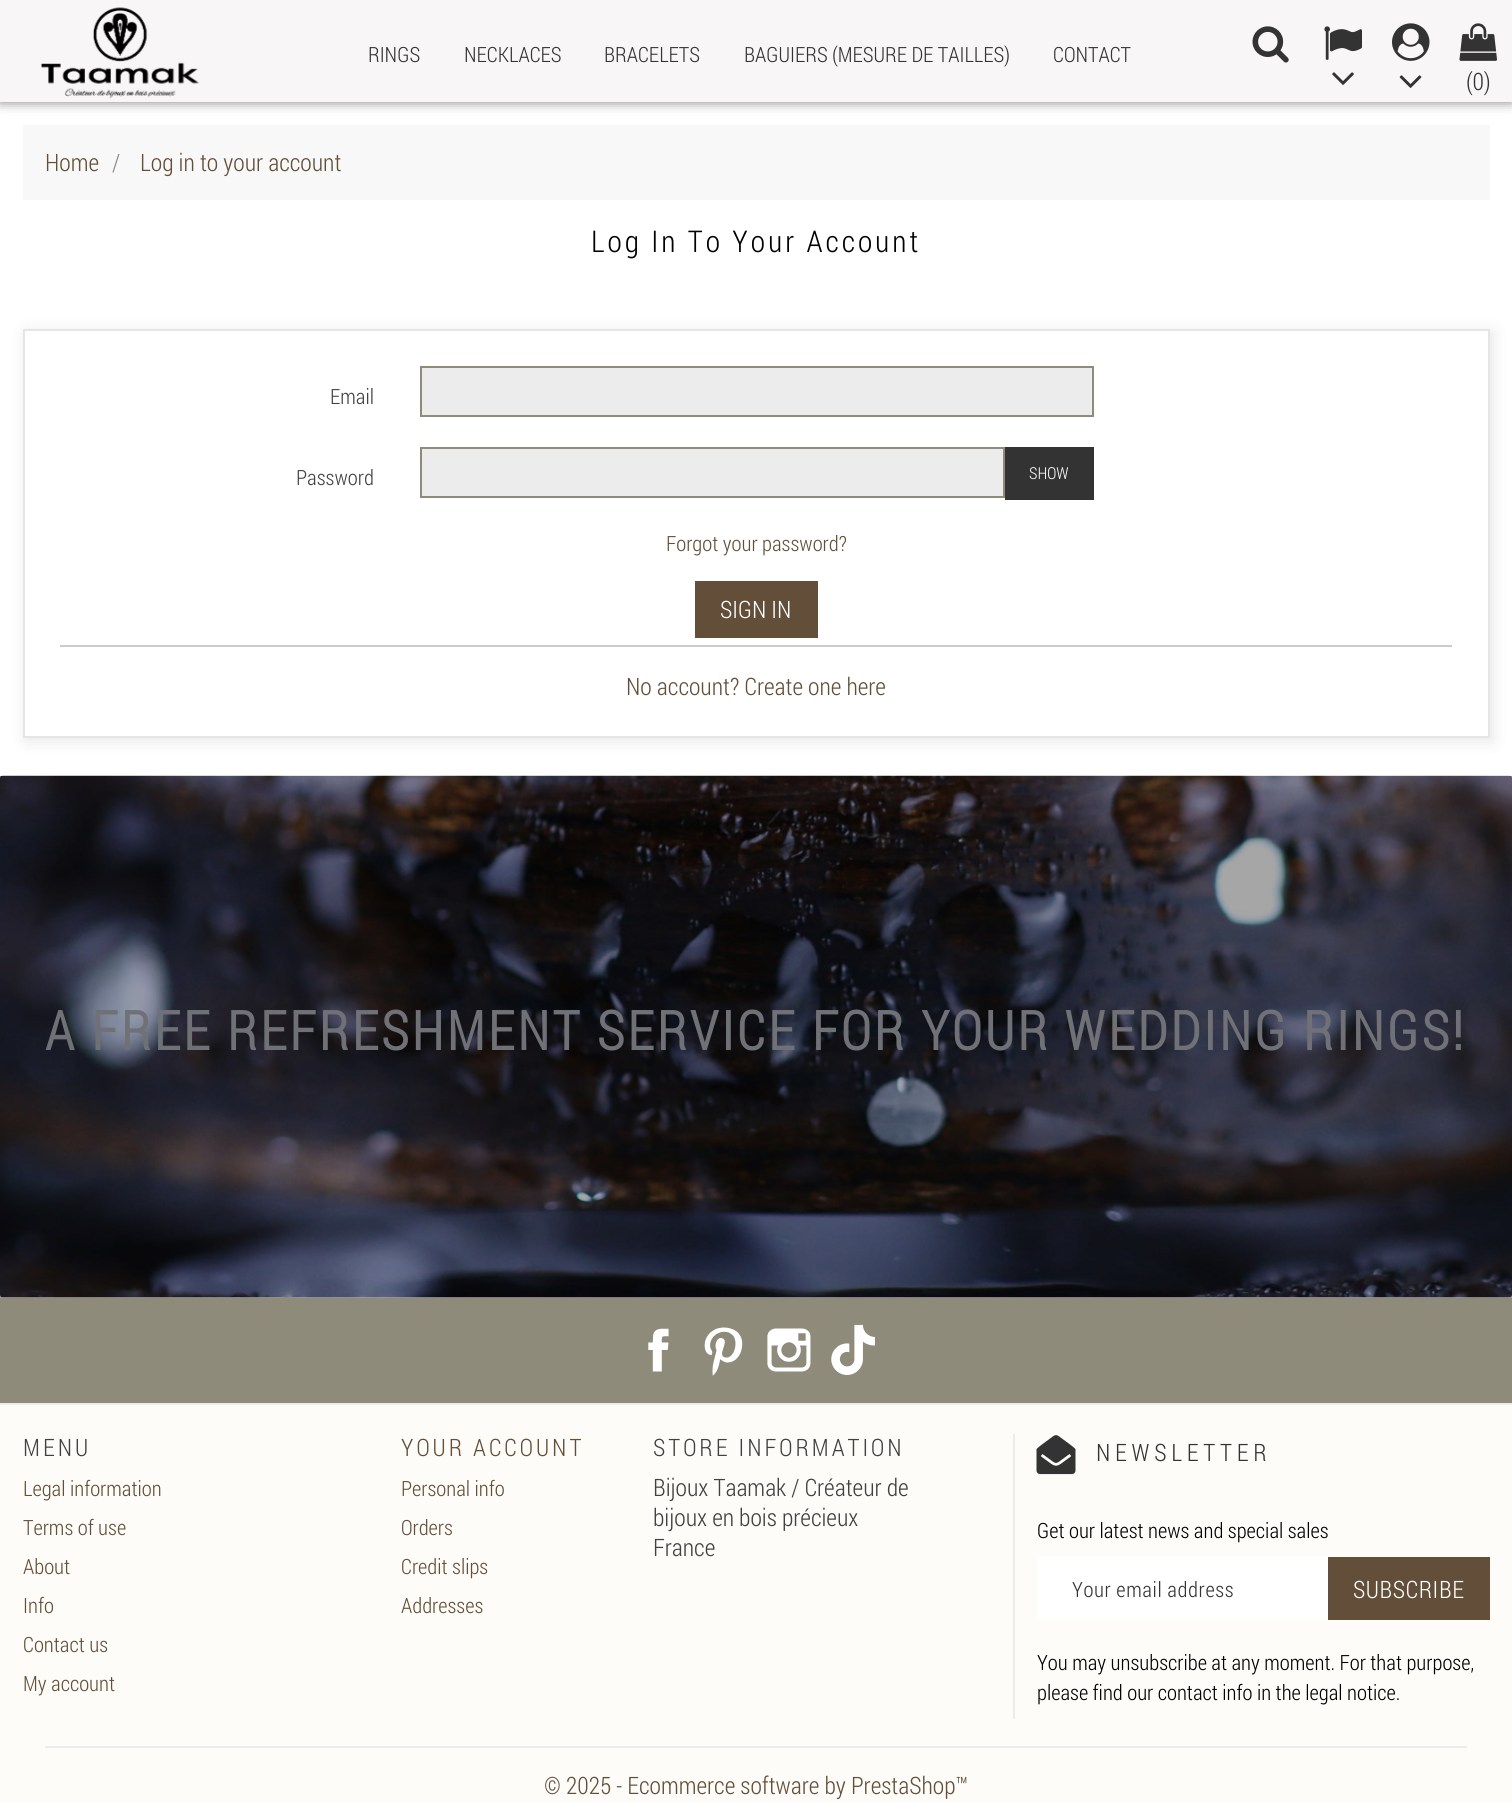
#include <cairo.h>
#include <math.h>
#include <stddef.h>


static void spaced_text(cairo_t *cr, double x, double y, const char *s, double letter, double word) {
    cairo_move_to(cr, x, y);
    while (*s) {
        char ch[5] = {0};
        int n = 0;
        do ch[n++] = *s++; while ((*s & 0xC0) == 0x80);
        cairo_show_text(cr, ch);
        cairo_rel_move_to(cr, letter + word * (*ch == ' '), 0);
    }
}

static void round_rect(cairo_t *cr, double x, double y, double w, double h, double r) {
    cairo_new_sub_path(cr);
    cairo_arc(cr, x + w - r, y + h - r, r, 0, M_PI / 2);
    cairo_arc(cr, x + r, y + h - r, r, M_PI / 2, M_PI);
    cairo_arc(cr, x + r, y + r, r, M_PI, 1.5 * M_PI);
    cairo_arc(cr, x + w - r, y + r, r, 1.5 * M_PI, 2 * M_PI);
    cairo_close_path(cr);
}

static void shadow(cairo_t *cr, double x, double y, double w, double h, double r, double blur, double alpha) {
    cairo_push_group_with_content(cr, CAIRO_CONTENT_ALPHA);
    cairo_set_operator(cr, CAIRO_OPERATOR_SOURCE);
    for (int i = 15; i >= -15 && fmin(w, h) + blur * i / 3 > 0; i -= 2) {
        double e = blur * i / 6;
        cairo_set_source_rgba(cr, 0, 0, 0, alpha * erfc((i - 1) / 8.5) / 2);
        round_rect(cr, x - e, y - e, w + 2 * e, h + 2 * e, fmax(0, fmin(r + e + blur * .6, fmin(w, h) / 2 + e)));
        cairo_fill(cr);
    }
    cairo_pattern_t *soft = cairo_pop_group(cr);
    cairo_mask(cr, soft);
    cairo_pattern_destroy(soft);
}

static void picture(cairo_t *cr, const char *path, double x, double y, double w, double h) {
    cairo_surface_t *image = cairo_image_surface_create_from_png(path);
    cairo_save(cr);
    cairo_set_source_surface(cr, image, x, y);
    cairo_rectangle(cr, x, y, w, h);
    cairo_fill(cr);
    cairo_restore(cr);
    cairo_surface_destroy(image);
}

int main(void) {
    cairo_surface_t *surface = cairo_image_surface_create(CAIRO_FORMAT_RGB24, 1512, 1803);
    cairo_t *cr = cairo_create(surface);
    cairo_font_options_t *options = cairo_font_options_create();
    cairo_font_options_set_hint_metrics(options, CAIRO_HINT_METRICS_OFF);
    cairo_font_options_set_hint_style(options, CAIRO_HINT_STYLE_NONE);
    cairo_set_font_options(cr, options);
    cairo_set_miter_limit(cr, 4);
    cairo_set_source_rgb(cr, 1, 1, 1);
    cairo_paint(cr);
    cairo_set_source_rgb(cr, 0, 0, 0);
    shadow(cr, 0, -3, 1512, 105, 0, 6, 0.5);
    cairo_set_source_rgb(cr, 0.976, 0.961, 0.969);
    cairo_rectangle(cr, 0, 0, 1512, 102);
    cairo_fill(cr);
    picture(cr, "img1.png", 41, 7, 158, 91);
    cairo_select_font_face(cr, "Roboto Condensed Light", CAIRO_FONT_SLANT_NORMAL, CAIRO_FONT_WEIGHT_NORMAL);
    cairo_set_font_size(cr, 21);
    cairo_set_source_rgb(cr, 0.2, 0.2, 0.2);
    cairo_move_to(cr, 368, 62);
    cairo_show_text(cr, "RINGS");
    cairo_move_to(cr, 464, 62);
    cairo_show_text(cr, "NECKLACES");
    cairo_move_to(cr, 604, 62);
    cairo_show_text(cr, "BRACELETS");
    cairo_move_to(cr, 744, 62);
    cairo_show_text(cr, "BAGUIERS (MESURE DE TAILLES)");
    cairo_move_to(cr, 1053, 62);
    cairo_show_text(cr, "CONTACT");
    picture(cr, "img2.png", 1252, 26, 37, 37);
    picture(cr, "img3.png", 1324, 26, 38, 34);
    picture(cr, "img4.png", 1332, 72, 22, 13);
    picture(cr, "img5.png", 1392, 23, 38, 38);
    picture(cr, "img6.png", 1399, 75, 23, 13);
    picture(cr, "img7.png", 1459, 23, 38, 38);
    cairo_set_font_size(cr, 24);
    cairo_move_to(cr, 1466, 90);
    cairo_show_text(cr, "(0)");
    cairo_set_source_rgb(cr, 0.969, 0.969, 0.969);
    cairo_rectangle(cr, 23, 125, 1467, 75);
    cairo_fill(cr);
    cairo_set_source_rgb(cr, 0.388, 0.31, 0.224);
    cairo_move_to(cr, 45, 171);
    cairo_show_text(cr, "Home");
    cairo_set_source_rgb(cr, 0.529, 0.529, 0.529);
    cairo_move_to(cr, 112, 171);
    cairo_show_text(cr, "/");
    cairo_set_source_rgb(cr, 0.388, 0.31, 0.224);
    cairo_move_to(cr, 140, 171);
    cairo_show_text(cr, "Log in to your account");
    cairo_set_font_size(cr, 30);
    cairo_set_source_rgb(cr, 0, 0, 0);
    spaced_text(cr, 591, 252, "Log In To Your Account", 3, 0);
    cairo_set_source_rgb(cr, 0, 0, 0);
    shadow(cr, 26, 332, 1467, 409, 0, 8, 0.1);
    cairo_set_source_rgb(cr, 1, 1, 1);
    cairo_rectangle(cr, 24, 330, 1465, 407);
    cairo_fill_preserve(cr);
    cairo_set_source_rgb(cr, 0.898, 0.898, 0.898);
    cairo_stroke(cr);
    cairo_set_font_size(cr, 21);
    cairo_set_source_rgb(cr, 0.255, 0.255, 0.255);
    cairo_move_to(cr, 330, 404);
    cairo_show_text(cr, "Email");
    cairo_set_source_rgb(cr, 0.922, 0.922, 0.922);
    cairo_rectangle(cr, 421, 367, 672, 49);
    cairo_fill_preserve(cr);
    cairo_set_source_rgb(cr, 0.557, 0.545, 0.478);
    cairo_stroke(cr);
    cairo_set_source_rgb(cr, 0.255, 0.255, 0.255);
    cairo_move_to(cr, 296, 485);
    cairo_show_text(cr, "Password");
    cairo_set_source_rgb(cr, 0.922, 0.922, 0.922);
    cairo_rectangle(cr, 421, 448, 583, 49);
    cairo_fill_preserve(cr);
    cairo_set_source_rgb(cr, 0.557, 0.545, 0.478);
    cairo_stroke(cr);
    cairo_set_source_rgb(cr, 0.2, 0.2, 0.2);
    cairo_rectangle(cr, 1005, 447, 89, 53);
    cairo_fill(cr);
    cairo_set_font_size(cr, 16.5);
    cairo_set_source_rgb(cr, 1, 1, 1);
    cairo_move_to(cr, 1029, 479);
    cairo_show_text(cr, "SHOW");
    cairo_set_font_size(cr, 21);
    cairo_set_source_rgb(cr, 0.388, 0.31, 0.224);
    cairo_move_to(cr, 666, 551);
    cairo_show_text(cr, "Forgot your password?");
    cairo_rectangle(cr, 695, 581, 123, 57);
    cairo_fill(cr);
    cairo_set_font_size(cr, 24);
    cairo_set_source_rgb(cr, 1, 1, 1);
    cairo_move_to(cr, 720, 618);
    cairo_show_text(cr, "SIGN IN");
    cairo_set_source_rgb(cr, 0.8, 0.8, 0.8);
    cairo_rectangle(cr, 60, 645, 1392, 2);
    cairo_fill(cr);
    cairo_set_source_rgb(cr, 0.388, 0.31, 0.224);
    cairo_move_to(cr, 626, 695);
    cairo_show_text(cr, "No account? Create one here");
    cairo_set_source_rgb(cr, 0.635, 0.624, 0.631);
    cairo_rectangle(cr, 0, 776, 1512, 522);
    cairo_fill(cr);
    cairo_set_source_rgb(cr, 0.651, 0.651, 0.651);
    round_rect(cr, 0, 776, 1512, 522, 3);
    cairo_fill(cr);
    picture(cr, "img8.png", 0, 775, 1512, 523);
    cairo_select_font_face(cr, "Roboto Condensed", CAIRO_FONT_SLANT_NORMAL, CAIRO_FONT_WEIGHT_BOLD);
    cairo_set_font_size(cr, 54);
    cairo_set_source_rgb(cr, 0.439, 0.443, 0.467);
    spaced_text(cr, 45, 1050, "A FREE REFRESHMENT SERVICE FOR YOUR WEDDING RINGS!", 3, 0);
    cairo_set_source_rgb(cr, 0.557, 0.545, 0.478);
    cairo_rectangle(cr, 0, 1298, 1512, 105);
    cairo_fill(cr);
    picture(cr, "img9.png", 648, 1328, 21, 44);
    picture(cr, "img10.png", 704, 1327, 39, 49);
    picture(cr, "img11.png", 767, 1328, 44, 44);
    picture(cr, "img12.png", 831, 1324, 44, 51);
    cairo_set_source_rgb(cr, 0.992, 0.988, 0.973);
    cairo_rectangle(cr, 0, 1405, 1512, 398);
    cairo_fill(cr);
    cairo_set_source_rgb(cr, 0.922, 0.922, 0.922);
    cairo_rectangle(cr, 0, 1403, 1512, 2);
    cairo_fill(cr);
    cairo_select_font_face(cr, "Roboto Condensed Light", CAIRO_FONT_SLANT_NORMAL, CAIRO_FONT_WEIGHT_NORMAL);
    cairo_set_font_size(cr, 24);
    cairo_set_source_rgb(cr, 0.255, 0.255, 0.255);
    spaced_text(cr, 23, 1456, "MENU", 3, 0);
    cairo_set_font_size(cr, 21);
    cairo_set_source_rgb(cr, 0.388, 0.31, 0.224);
    cairo_move_to(cr, 23, 1496);
    cairo_show_text(cr, "Legal information");
    cairo_move_to(cr, 23, 1535);
    cairo_show_text(cr, "Terms of use");
    cairo_move_to(cr, 23, 1574);
    cairo_show_text(cr, "About");
    cairo_move_to(cr, 23, 1613);
    cairo_show_text(cr, "Info");
    cairo_move_to(cr, 23, 1652);
    cairo_show_text(cr, "Contact us");
    cairo_move_to(cr, 23, 1691);
    cairo_show_text(cr, "My account");
    cairo_set_font_size(cr, 24);
    spaced_text(cr, 401, 1456, "YOUR ACCOUNT", 3, 0);
    cairo_set_font_size(cr, 21);
    cairo_move_to(cr, 401, 1496);
    cairo_show_text(cr, "Personal info");
    cairo_move_to(cr, 401, 1535);
    cairo_show_text(cr, "Orders");
    cairo_move_to(cr, 401, 1574);
    cairo_show_text(cr, "Credit slips");
    cairo_move_to(cr, 401, 1613);
    cairo_show_text(cr, "Addresses");
    cairo_set_font_size(cr, 24);
    cairo_set_source_rgb(cr, 0.255, 0.255, 0.255);
    spaced_text(cr, 653, 1456, "STORE INFORMATION", 3, 0);
    cairo_move_to(cr, 653, 1496);
    cairo_show_text(cr, "Bijoux Taamak / Créateur de");
    cairo_move_to(cr, 653, 1526);
    cairo_show_text(cr, "bijoux en bois précieux");
    cairo_move_to(cr, 653, 1556);
    cairo_show_text(cr, "France");
    cairo_set_source_rgb(cr, 0.922, 0.922, 0.922);
    cairo_rectangle(cr, 1013, 1434, 2, 285);
    cairo_fill(cr);
    picture(cr, "img13.png", 1036, 1435, 40, 40);
    cairo_set_source_rgb(cr, 0.2, 0.2, 0.2);
    spaced_text(cr, 1096, 1461, "NEWSLETTER", 4.75, 0);
    cairo_set_font_size(cr, 21);
    cairo_set_source_rgb(cr, 0, 0, 0);
    cairo_move_to(cr, 1037, 1538);
    cairo_show_text(cr, "Get our latest news and special sales");
    cairo_set_source_rgb(cr, 1, 1, 1);
    cairo_rectangle(cr, 1037, 1557, 291, 63);
    cairo_fill(cr);
    cairo_set_source_rgb(cr, 0.2, 0.2, 0.2);
    spaced_text(cr, 1072, 1597, "Your email address", 0.6, 0);
    cairo_set_source_rgb(cr, 0.388, 0.31, 0.224);
    cairo_rectangle(cr, 1328, 1557, 162, 63);
    cairo_fill(cr);
    cairo_set_font_size(cr, 24);
    cairo_set_source_rgb(cr, 1, 1, 1);
    spaced_text(cr, 1353, 1598, "SUBSCRIBE", 0.6, 0);
    cairo_set_font_size(cr, 21);
    cairo_set_source_rgb(cr, 0, 0, 0);
    cairo_move_to(cr, 1037, 1670);
    cairo_show_text(cr, "You may unsubscribe at any moment. For that purpose,");
    cairo_move_to(cr, 1037, 1700);
    cairo_show_text(cr, "please find our contact info in the legal notice.");
    cairo_set_source_rgb(cr, 0.922, 0.922, 0.922);
    cairo_rectangle(cr, 45, 1746, 1422, 2);
    cairo_fill(cr);
    cairo_set_font_size(cr, 24);
    cairo_set_source_rgb(cr, 0.388, 0.31, 0.224);
    cairo_move_to(cr, 544, 1794);
    cairo_show_text(cr, "© 2025 - Ecommerce software by PrestaShop™");
    cairo_surface_write_to_png(surface, "page.png");
    cairo_font_options_destroy(options);
    cairo_destroy(cr);
    cairo_surface_destroy(surface);
    return 0;
}
